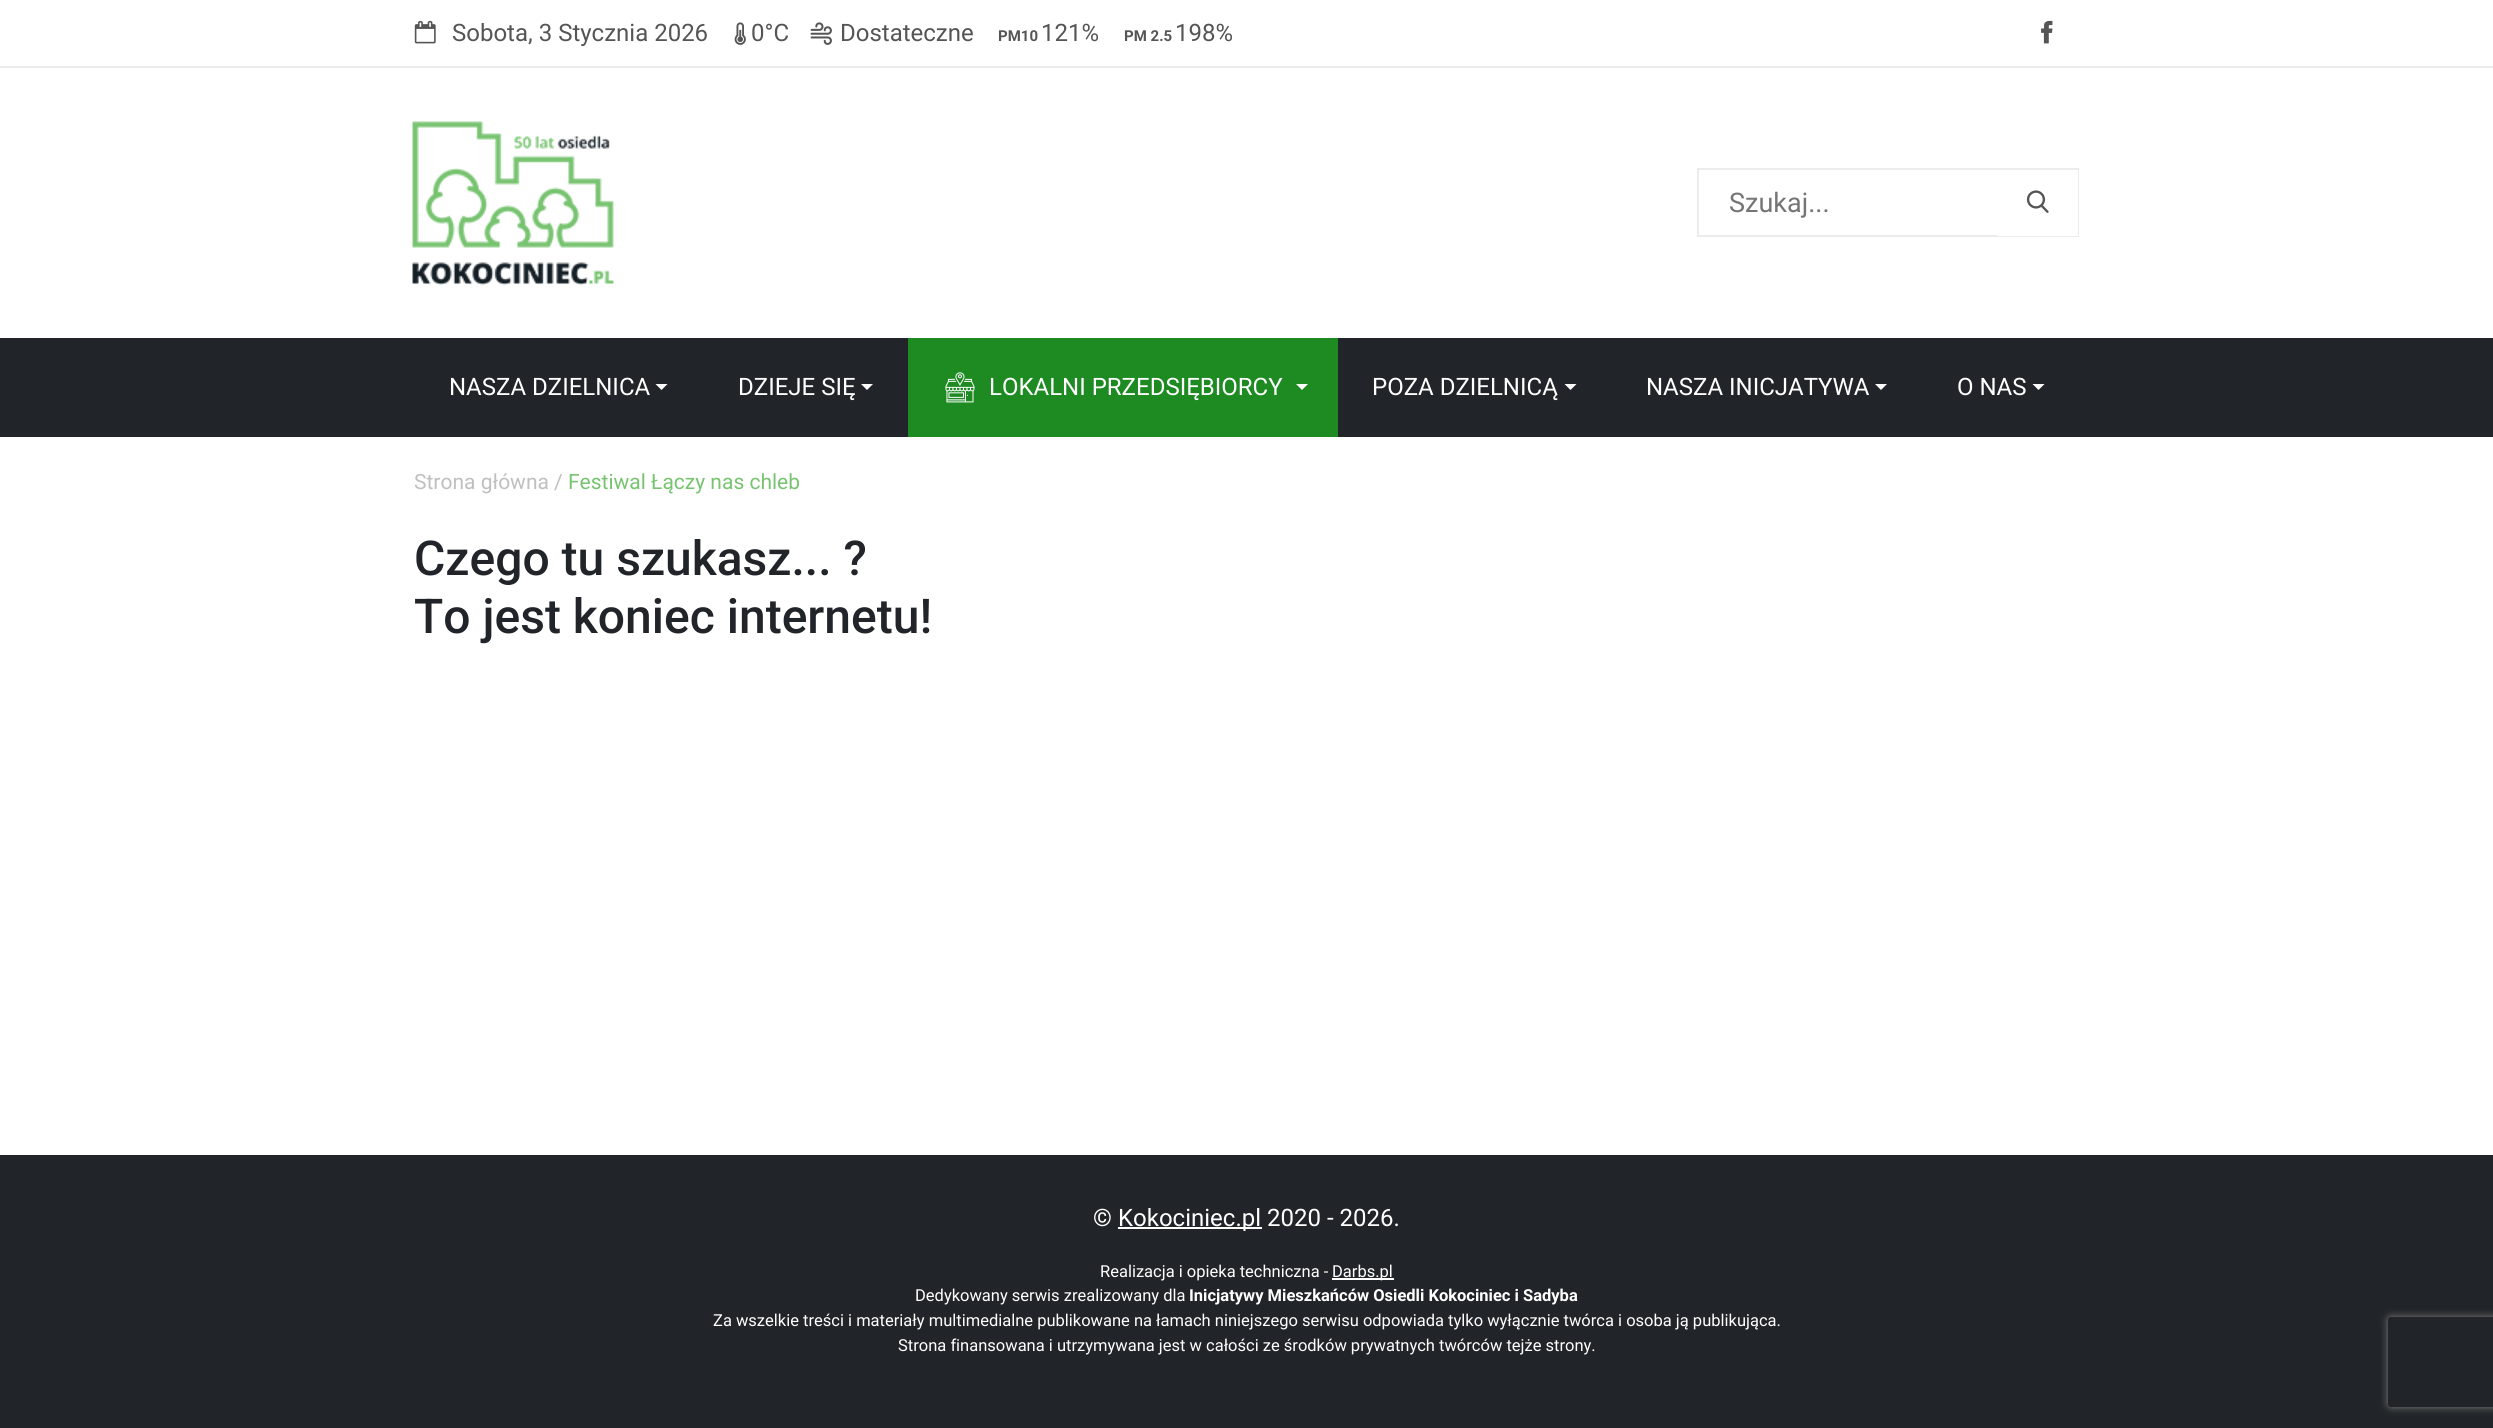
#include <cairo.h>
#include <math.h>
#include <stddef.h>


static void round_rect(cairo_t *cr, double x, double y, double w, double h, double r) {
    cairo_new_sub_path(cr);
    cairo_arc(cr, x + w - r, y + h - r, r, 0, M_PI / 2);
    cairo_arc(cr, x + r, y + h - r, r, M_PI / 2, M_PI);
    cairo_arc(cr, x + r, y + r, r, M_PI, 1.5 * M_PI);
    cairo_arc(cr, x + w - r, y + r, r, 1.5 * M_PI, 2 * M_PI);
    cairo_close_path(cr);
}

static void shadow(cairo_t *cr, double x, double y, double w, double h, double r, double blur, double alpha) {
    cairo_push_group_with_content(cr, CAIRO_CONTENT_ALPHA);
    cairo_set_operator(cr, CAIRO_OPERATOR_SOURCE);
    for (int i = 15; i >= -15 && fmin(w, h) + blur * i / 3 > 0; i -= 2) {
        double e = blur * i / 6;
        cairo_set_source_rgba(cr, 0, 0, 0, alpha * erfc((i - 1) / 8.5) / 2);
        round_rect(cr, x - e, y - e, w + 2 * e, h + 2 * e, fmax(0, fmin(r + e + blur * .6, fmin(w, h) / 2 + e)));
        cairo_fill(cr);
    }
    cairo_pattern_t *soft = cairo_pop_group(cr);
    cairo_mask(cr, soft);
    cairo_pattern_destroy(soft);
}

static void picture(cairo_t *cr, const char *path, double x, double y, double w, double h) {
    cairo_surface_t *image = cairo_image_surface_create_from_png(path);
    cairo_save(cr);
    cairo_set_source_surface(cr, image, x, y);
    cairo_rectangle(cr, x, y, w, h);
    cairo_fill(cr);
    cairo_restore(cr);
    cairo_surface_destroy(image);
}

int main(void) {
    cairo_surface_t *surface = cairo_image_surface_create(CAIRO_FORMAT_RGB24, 2493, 1428);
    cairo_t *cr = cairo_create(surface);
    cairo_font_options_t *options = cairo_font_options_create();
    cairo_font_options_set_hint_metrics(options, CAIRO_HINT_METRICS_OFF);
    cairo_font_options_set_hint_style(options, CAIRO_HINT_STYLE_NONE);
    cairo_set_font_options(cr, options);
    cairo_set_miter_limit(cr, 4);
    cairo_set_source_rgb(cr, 1, 1, 1);
    cairo_paint(cr);
    cairo_set_source_rgb(cr, 0.925, 0.925, 0.925);
    cairo_rectangle(cr, 0, 66, 2493, 2);
    cairo_fill(cr);
    picture(cr, "img1.png", 414, 20, 22, 24);
    cairo_select_font_face(cr, "Roboto", CAIRO_FONT_SLANT_NORMAL, CAIRO_FONT_WEIGHT_NORMAL);
    cairo_set_font_size(cr, 24);
    cairo_set_source_rgb(cr, 0.333, 0.333, 0.333);
    cairo_move_to(cr, 452, 41);
    cairo_show_text(cr, "Sobota, 3 Stycznia 2026");
    picture(cr, "img2.png", 734, 22, 12, 23);
    cairo_move_to(cr, 751, 41);
    cairo_show_text(cr, "0°C");
    picture(cr, "img3.png", 810, 22, 22, 23);
    cairo_move_to(cr, 840, 41);
    cairo_show_text(cr, "Dostateczne");
    cairo_select_font_face(cr, "Roboto", CAIRO_FONT_SLANT_NORMAL, CAIRO_FONT_WEIGHT_BOLD);
    cairo_set_font_size(cr, 15);
    cairo_move_to(cr, 998, 41);
    cairo_show_text(cr, "PM10");
    cairo_select_font_face(cr, "Roboto", CAIRO_FONT_SLANT_NORMAL, CAIRO_FONT_WEIGHT_NORMAL);
    cairo_set_font_size(cr, 24);
    cairo_move_to(cr, 1041, 41);
    cairo_show_text(cr, "121%");
    cairo_select_font_face(cr, "Roboto", CAIRO_FONT_SLANT_NORMAL, CAIRO_FONT_WEIGHT_BOLD);
    cairo_set_font_size(cr, 15);
    cairo_move_to(cr, 1124, 41);
    cairo_show_text(cr, "PM 2.5");
    cairo_select_font_face(cr, "Roboto", CAIRO_FONT_SLANT_NORMAL, CAIRO_FONT_WEIGHT_NORMAL);
    cairo_set_font_size(cr, 24);
    cairo_move_to(cr, 1175, 41);
    cairo_show_text(cr, "198%");
    picture(cr, "img4.png", 2041, 20, 12, 24);
    picture(cr, "img5.png", 412, 121, 202, 165);
    cairo_rectangle(cr, 1698, 169, 380, 67);
    cairo_set_source_rgb(cr, 0.925, 0.925, 0.925);
    cairo_stroke(cr);
    cairo_set_font_size(cr, 27);
    cairo_set_source_rgb(cr, 0.459, 0.459, 0.459);
    cairo_move_to(cr, 1729, 212);
    cairo_show_text(cr, "Szukaj...");
    cairo_set_source_rgb(cr, 1, 1, 1);
    cairo_rectangle(cr, 1998, 170, 80, 66);
    cairo_fill(cr);
    picture(cr, "img6.png", 2026, 190, 23, 23);
    cairo_set_source_rgb(cr, 0.129, 0.145, 0.161);
    cairo_rectangle(cr, 0, 338, 2493, 99);
    cairo_fill(cr);
    cairo_set_font_size(cr, 24);
    cairo_set_source_rgb(cr, 1, 1, 1);
    cairo_move_to(cr, 449, 395);
    cairo_show_text(cr, "NASZA DZIELNICA");
    cairo_new_path(cr);
    cairo_move_to(cr, 655.5, 384);
    cairo_line_to(cr, 667.5, 384);
    cairo_line_to(cr, 661.5, 390);
    cairo_close_path(cr);
    cairo_fill(cr);
    cairo_move_to(cr, 738, 395);
    cairo_show_text(cr, "DZIEJE SIĘ");
    cairo_new_path(cr);
    cairo_move_to(cr, 861, 384);
    cairo_line_to(cr, 873, 384);
    cairo_line_to(cr, 867, 390);
    cairo_close_path(cr);
    cairo_fill(cr);
    cairo_set_source_rgb(cr, 0.114, 0.541, 0.133);
    cairo_rectangle(cr, 908, 338, 430, 99);
    cairo_fill(cr);
    picture(cr, "img7.png", 945, 372, 30, 31);
    cairo_set_source_rgb(cr, 1, 1, 1);
    cairo_move_to(cr, 989, 395);
    cairo_show_text(cr, "LOKALNI PRZEDSIĘBIORCY");
    cairo_new_path(cr);
    cairo_move_to(cr, 1296, 384);
    cairo_line_to(cr, 1308, 384);
    cairo_line_to(cr, 1302, 390);
    cairo_close_path(cr);
    cairo_fill(cr);
    cairo_move_to(cr, 1372, 395);
    cairo_show_text(cr, "POZA DZIELNICĄ");
    cairo_new_path(cr);
    cairo_move_to(cr, 1564.5, 384);
    cairo_line_to(cr, 1576.5, 384);
    cairo_line_to(cr, 1570.5, 390);
    cairo_close_path(cr);
    cairo_fill(cr);
    cairo_move_to(cr, 1646, 395);
    cairo_show_text(cr, "NASZA INICJATYWA");
    cairo_new_path(cr);
    cairo_move_to(cr, 1875, 384);
    cairo_line_to(cr, 1887, 384);
    cairo_line_to(cr, 1881, 390);
    cairo_close_path(cr);
    cairo_fill(cr);
    cairo_move_to(cr, 1957, 395);
    cairo_show_text(cr, "O NAS");
    cairo_new_path(cr);
    cairo_move_to(cr, 2032.5, 384);
    cairo_line_to(cr, 2044.5, 384);
    cairo_line_to(cr, 2038.5, 390);
    cairo_close_path(cr);
    cairo_fill(cr);
    cairo_set_font_size(cr, 21);
    cairo_set_source_rgb(cr, 0.749, 0.749, 0.749);
    cairo_move_to(cr, 414, 489);
    cairo_show_text(cr, "Strona główna /");
    cairo_set_source_rgb(cr, 0.467, 0.765, 0.439);
    cairo_move_to(cr, 568, 489);
    cairo_show_text(cr, "Festiwal Łączy nas chleb");
    cairo_select_font_face(cr, "Roboto Medium", CAIRO_FONT_SLANT_NORMAL, CAIRO_FONT_WEIGHT_NORMAL);
    cairo_set_font_size(cr, 48);
    cairo_set_source_rgb(cr, 0.129, 0.145, 0.161);
    cairo_move_to(cr, 414, 575);
    cairo_show_text(cr, "Czego tu szukasz... ?");
    cairo_move_to(cr, 414, 633);
    cairo_show_text(cr, "To jest koniec internetu!");
    cairo_rectangle(cr, 0, 1155, 2493, 273);
    cairo_fill(cr);
    cairo_select_font_face(cr, "Roboto", CAIRO_FONT_SLANT_NORMAL, CAIRO_FONT_WEIGHT_NORMAL);
    cairo_set_font_size(cr, 24);
    cairo_set_source_rgb(cr, 1, 1, 1);
    cairo_move_to(cr, 1093, 1226);
    cairo_show_text(cr, "©");
    cairo_rectangle(cr, 1118, 1227, 144, 2);
    cairo_fill(cr);
    cairo_move_to(cr, 1118, 1226);
    cairo_show_text(cr, "Kokociniec.pl 2020 - 2026.");
    cairo_set_font_size(cr, 16.5);
    cairo_move_to(cr, 1100, 1277);
    cairo_show_text(cr, "Realizacja i opieka techniczna -");
    cairo_rectangle(cr, 1332, 1278, 62, 2);
    cairo_fill(cr);
    cairo_move_to(cr, 1332, 1277);
    cairo_show_text(cr, "Darbs.pl");
    cairo_move_to(cr, 915, 1301);
    cairo_show_text(cr, "Dedykowany serwis zrealizowany dla");
    cairo_select_font_face(cr, "Roboto", CAIRO_FONT_SLANT_NORMAL, CAIRO_FONT_WEIGHT_BOLD);
    cairo_move_to(cr, 1189, 1301);
    cairo_show_text(cr, "Inicjatywy Mieszkańców Osiedli Kokociniec i Sadyba");
    cairo_select_font_face(cr, "Roboto", CAIRO_FONT_SLANT_NORMAL, CAIRO_FONT_WEIGHT_NORMAL);
    cairo_move_to(cr, 713, 1326);
    cairo_show_text(cr, "Za wszelkie treści i materiały multimedialne publikowane na łamach niniejszego serwisu odpowiada tylko wyłącznie twórca i osoba ją publikująca.");
    cairo_move_to(cr, 898, 1351);
    cairo_show_text(cr, "Strona finansowana i utrzymywana jest w całości ze środków prywatnych twórców tejże strony.");
    cairo_save(cr);
    cairo_set_fill_rule(cr, CAIRO_FILL_RULE_EVEN_ODD);
    cairo_new_path(cr);
    cairo_move_to(cr, 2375, 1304);
    cairo_line_to(cr, 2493, 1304);
    cairo_line_to(cr, 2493, 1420);
    cairo_line_to(cr, 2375, 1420);
    cairo_close_path(cr);
    cairo_move_to(cr, 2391, 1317);
    cairo_line_to(cr, 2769, 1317);
    cairo_curve_to(cr, 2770.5, 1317, 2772, 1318.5, 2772, 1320);
    cairo_line_to(cr, 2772, 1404);
    cairo_curve_to(cr, 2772, 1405.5, 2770.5, 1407, 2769, 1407);
    cairo_line_to(cr, 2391, 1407);
    cairo_curve_to(cr, 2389.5, 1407, 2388, 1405.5, 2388, 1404);
    cairo_line_to(cr, 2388, 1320);
    cairo_curve_to(cr, 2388, 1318.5, 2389.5, 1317, 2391, 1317);
    cairo_close_path(cr);
    cairo_clip(cr);
    cairo_set_source_rgb(cr, 0.502, 0.502, 0.502);
    shadow(cr, 2388, 1317, 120, 90, 3, 4, 1);
    cairo_restore(cr);
    cairo_surface_write_to_png(surface, "page.png");
    cairo_font_options_destroy(options);
    cairo_destroy(cr);
    cairo_surface_destroy(surface);
    return 0;
}
